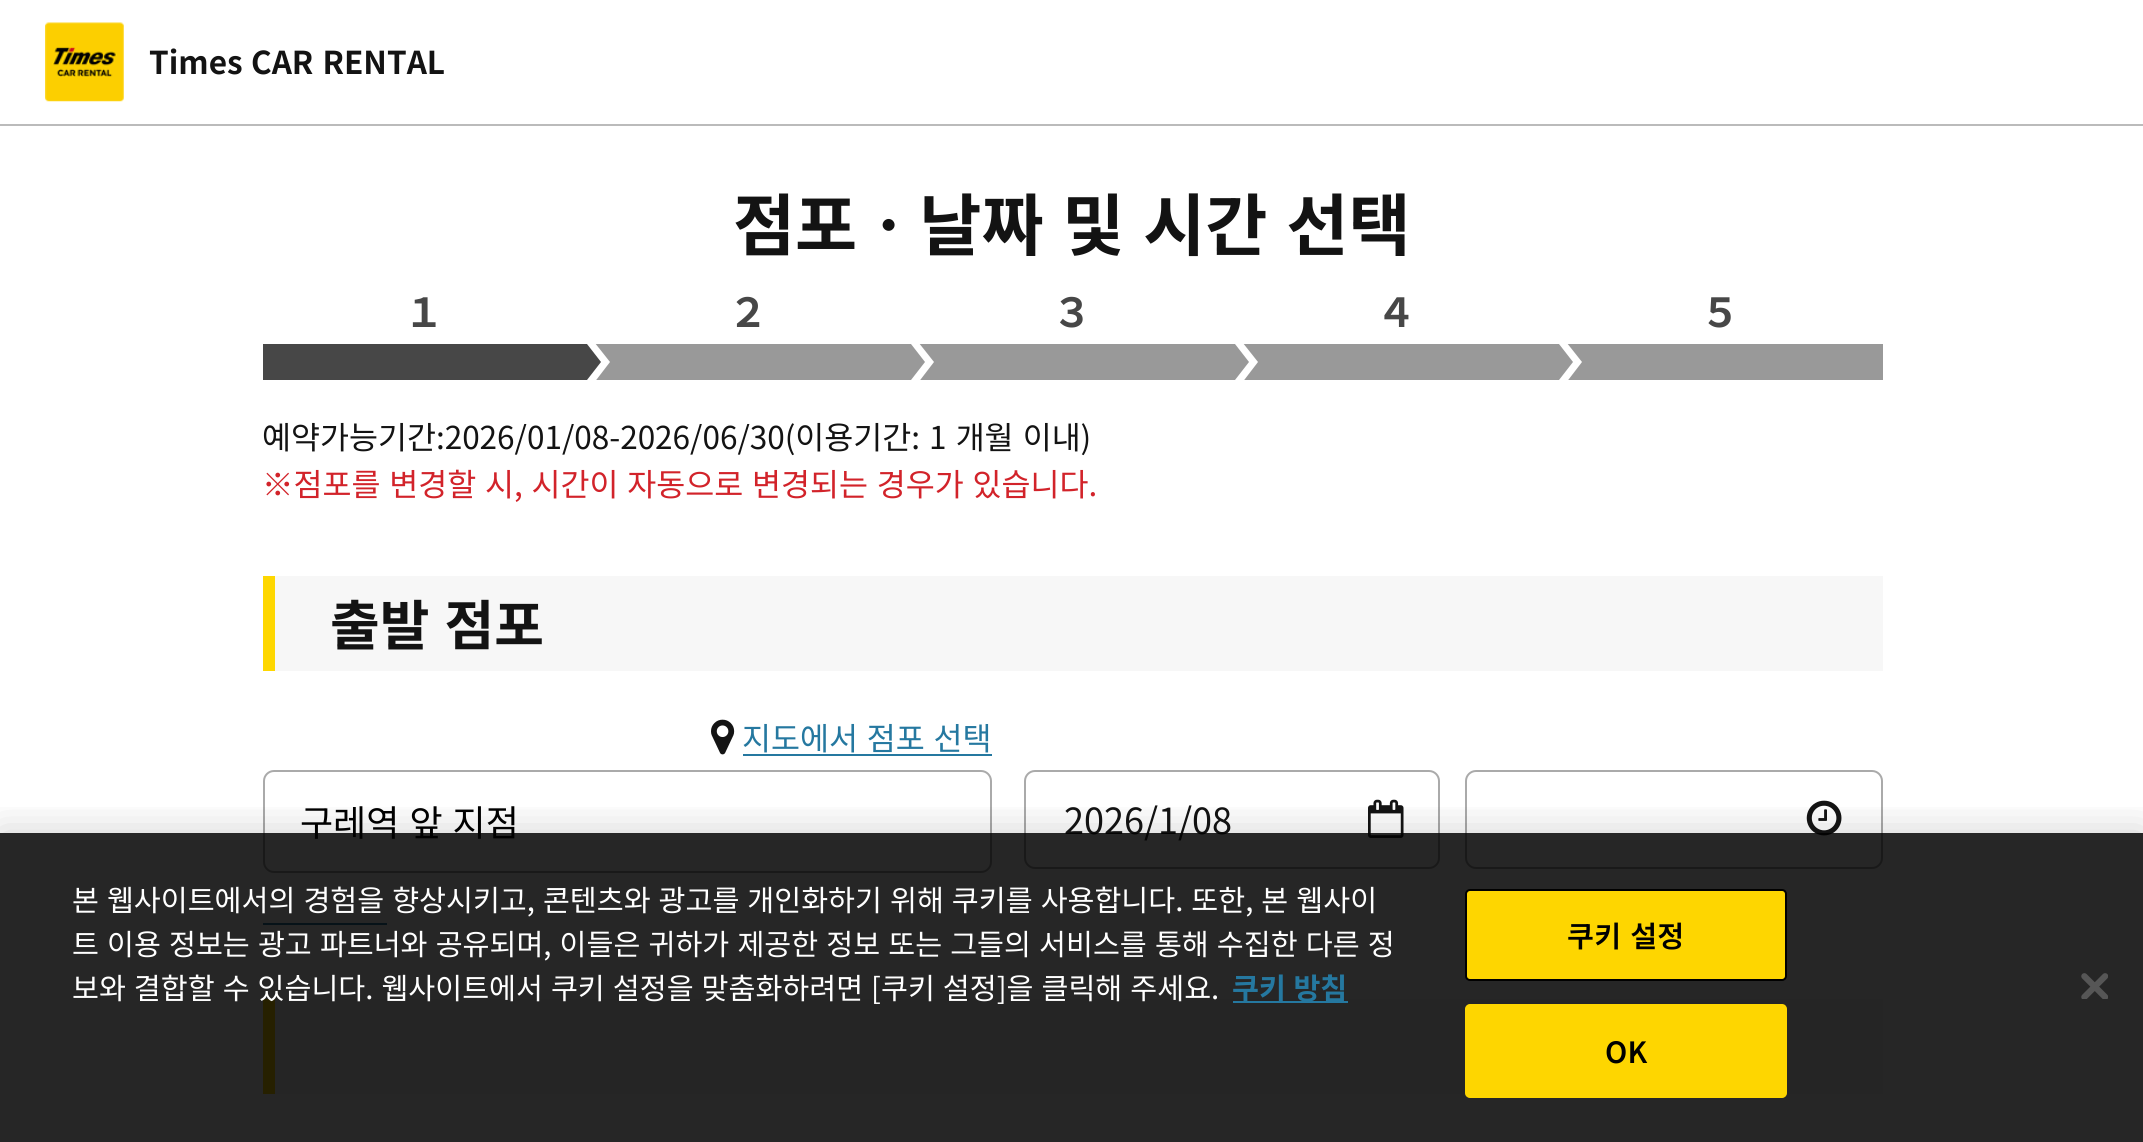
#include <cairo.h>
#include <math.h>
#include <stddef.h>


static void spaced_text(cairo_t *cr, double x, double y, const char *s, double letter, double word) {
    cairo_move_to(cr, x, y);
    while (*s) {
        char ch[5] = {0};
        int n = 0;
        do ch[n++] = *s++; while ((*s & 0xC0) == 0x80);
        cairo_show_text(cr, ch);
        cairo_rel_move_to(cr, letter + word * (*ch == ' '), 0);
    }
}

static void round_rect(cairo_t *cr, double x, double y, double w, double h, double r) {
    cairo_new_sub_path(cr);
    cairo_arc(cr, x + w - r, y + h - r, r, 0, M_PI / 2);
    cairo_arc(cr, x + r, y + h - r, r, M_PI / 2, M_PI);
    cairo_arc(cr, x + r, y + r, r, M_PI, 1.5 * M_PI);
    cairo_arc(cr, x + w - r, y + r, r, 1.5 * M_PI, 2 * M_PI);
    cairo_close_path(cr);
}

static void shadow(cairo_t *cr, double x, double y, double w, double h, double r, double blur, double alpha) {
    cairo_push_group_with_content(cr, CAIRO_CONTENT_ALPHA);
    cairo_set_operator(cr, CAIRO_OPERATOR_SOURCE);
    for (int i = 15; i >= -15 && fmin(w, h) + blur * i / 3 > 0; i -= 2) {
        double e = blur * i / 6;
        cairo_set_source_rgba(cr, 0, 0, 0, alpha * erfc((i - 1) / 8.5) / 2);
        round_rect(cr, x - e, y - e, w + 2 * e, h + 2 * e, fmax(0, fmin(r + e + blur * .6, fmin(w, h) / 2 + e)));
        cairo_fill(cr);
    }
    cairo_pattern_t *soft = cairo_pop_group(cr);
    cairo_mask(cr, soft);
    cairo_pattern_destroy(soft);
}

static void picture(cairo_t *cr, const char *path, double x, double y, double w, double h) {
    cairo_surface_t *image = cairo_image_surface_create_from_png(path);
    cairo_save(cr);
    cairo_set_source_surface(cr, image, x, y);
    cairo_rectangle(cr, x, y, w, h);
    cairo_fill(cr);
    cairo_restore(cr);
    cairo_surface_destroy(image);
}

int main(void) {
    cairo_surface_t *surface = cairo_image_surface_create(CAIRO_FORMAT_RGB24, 2143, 1142);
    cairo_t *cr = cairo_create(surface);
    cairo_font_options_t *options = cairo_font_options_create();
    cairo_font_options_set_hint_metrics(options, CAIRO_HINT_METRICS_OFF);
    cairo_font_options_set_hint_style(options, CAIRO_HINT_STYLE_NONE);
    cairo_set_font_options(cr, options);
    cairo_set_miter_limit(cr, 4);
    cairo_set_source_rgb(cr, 1, 1, 1);
    cairo_paint(cr);
    cairo_set_source_rgb(cr, 0.733, 0.733, 0.733);
    cairo_rectangle(cr, 0, 124, 2143, 2);
    cairo_fill(cr);
    picture(cr, "img1.png", 45, 22, 79, 80);
    cairo_select_font_face(cr, "Noto Sans KR", CAIRO_FONT_SLANT_NORMAL, CAIRO_FONT_WEIGHT_BOLD);
    cairo_set_font_size(cr, 31.5);
    cairo_set_source_rgb(cr, 0.078, 0.078, 0.078);
    cairo_move_to(cr, 149, 74);
    cairo_show_text(cr, "Times");
    spaced_text(cr, 251, 74, "CAR RENTAL", 0, 2);
    cairo_set_font_size(cr, 67.5);
    spaced_text(cr, 733, 250, "점포ㆍ날짜 및 시간 선택", 0, 3.5);
    cairo_set_source_rgb(cr, 0.278, 0.278, 0.278);
    cairo_rectangle(cr, 263, 344, 324, 36);
    cairo_fill(cr);
    cairo_set_font_size(cr, 40);
    cairo_move_to(cr, 404, 327);
    cairo_show_text(cr, "１");
    cairo_set_source_rgb(cr, 0.6, 0.6, 0.6);
    cairo_rectangle(cr, 595, 344, 316, 36);
    cairo_fill(cr);
    cairo_set_source_rgb(cr, 1, 1, 1);
    cairo_new_path(cr);
    cairo_move_to(cr, 587, 392);
    cairo_line_to(cr, 587, 333);
    cairo_line_to(cr, 610, 362);
    cairo_close_path(cr);
    cairo_fill(cr);
    cairo_set_source_rgb(cr, 0.278, 0.278, 0.278);
    cairo_new_path(cr);
    cairo_move_to(cr, 587, 380);
    cairo_line_to(cr, 587, 344);
    cairo_line_to(cr, 601, 362);
    cairo_close_path(cr);
    cairo_fill(cr);
    cairo_move_to(cr, 728, 327);
    cairo_show_text(cr, "２");
    cairo_set_source_rgb(cr, 0.6, 0.6, 0.6);
    cairo_rectangle(cr, 919, 344, 316, 36);
    cairo_fill(cr);
    cairo_set_source_rgb(cr, 1, 1, 1);
    cairo_new_path(cr);
    cairo_move_to(cr, 911, 392);
    cairo_line_to(cr, 911, 333);
    cairo_line_to(cr, 934, 362);
    cairo_close_path(cr);
    cairo_fill(cr);
    cairo_set_source_rgb(cr, 0.6, 0.6, 0.6);
    cairo_new_path(cr);
    cairo_move_to(cr, 911, 380);
    cairo_line_to(cr, 911, 344);
    cairo_line_to(cr, 925, 362);
    cairo_close_path(cr);
    cairo_fill(cr);
    cairo_set_source_rgb(cr, 0.278, 0.278, 0.278);
    cairo_move_to(cr, 1052, 327);
    cairo_show_text(cr, "３");
    cairo_set_source_rgb(cr, 0.6, 0.6, 0.6);
    cairo_rectangle(cr, 1243, 344, 316, 36);
    cairo_fill(cr);
    cairo_set_source_rgb(cr, 1, 1, 1);
    cairo_new_path(cr);
    cairo_move_to(cr, 1235, 392);
    cairo_line_to(cr, 1235, 333);
    cairo_line_to(cr, 1258, 362);
    cairo_close_path(cr);
    cairo_fill(cr);
    cairo_set_source_rgb(cr, 0.6, 0.6, 0.6);
    cairo_new_path(cr);
    cairo_move_to(cr, 1235, 380);
    cairo_line_to(cr, 1235, 344);
    cairo_line_to(cr, 1249, 362);
    cairo_close_path(cr);
    cairo_fill(cr);
    cairo_set_source_rgb(cr, 0.278, 0.278, 0.278);
    cairo_move_to(cr, 1376, 327);
    cairo_show_text(cr, "４");
    cairo_set_source_rgb(cr, 0.6, 0.6, 0.6);
    cairo_rectangle(cr, 1567, 344, 316, 36);
    cairo_fill(cr);
    cairo_set_source_rgb(cr, 1, 1, 1);
    cairo_new_path(cr);
    cairo_move_to(cr, 1559, 392);
    cairo_line_to(cr, 1559, 333);
    cairo_line_to(cr, 1582, 362);
    cairo_close_path(cr);
    cairo_fill(cr);
    cairo_set_source_rgb(cr, 0.6, 0.6, 0.6);
    cairo_new_path(cr);
    cairo_move_to(cr, 1559, 380);
    cairo_line_to(cr, 1559, 344);
    cairo_line_to(cr, 1573, 362);
    cairo_close_path(cr);
    cairo_fill(cr);
    cairo_set_source_rgb(cr, 0.278, 0.278, 0.278);
    cairo_move_to(cr, 1700, 327);
    cairo_show_text(cr, "５");
    cairo_select_font_face(cr, "Noto Sans KR", CAIRO_FONT_SLANT_NORMAL, CAIRO_FONT_WEIGHT_NORMAL);
    cairo_set_font_size(cr, 31.5);
    cairo_set_source_rgb(cr, 0.078, 0.078, 0.078);
    spaced_text(cr, 262, 449, "예약가능기간:2026/01/08-2026/06/30(이용기간: 1 개월 이내)", 0, 2);
    cairo_set_source_rgb(cr, 0.824, 0.137, 0.165);
    spaced_text(cr, 262, 496, "※점포를 변경할 시, 시간이 자동으로 변경되는 경우가 있습니다.", 0, 1.75);
    cairo_set_source_rgb(cr, 0.965, 0.965, 0.965);
    cairo_rectangle(cr, 275, 576, 1608, 95);
    cairo_fill(cr);
    cairo_set_source_rgb(cr, 0.996, 0.843, 0);
    cairo_rectangle(cr, 263, 576, 12, 95);
    cairo_fill(cr);
    cairo_select_font_face(cr, "Noto Sans KR", CAIRO_FONT_SLANT_NORMAL, CAIRO_FONT_WEIGHT_BOLD);
    cairo_set_font_size(cr, 54);
    cairo_set_source_rgb(cr, 0.078, 0.078, 0.078);
    spaced_text(cr, 330, 645, "출발 점포", 0, 3);
    picture(cr, "img2.png", 711, 719, 24, 36);
    cairo_select_font_face(cr, "Noto Sans KR", CAIRO_FONT_SLANT_NORMAL, CAIRO_FONT_WEIGHT_NORMAL);
    cairo_set_font_size(cr, 31.5);
    cairo_set_source_rgb(cr, 0.145, 0.471, 0.627);
    spaced_text(cr, 742, 750, "지도에서 점포 선택", 0, 1.75);
    cairo_rectangle(cr, 743, 754, 249, 2);
    cairo_fill(cr);
    round_rect(cr, 264, 771, 727, 101, 10);
    cairo_set_source_rgb(cr, 0.667, 0.667, 0.667);
    cairo_stroke(cr);
    cairo_set_font_size(cr, 36);
    cairo_set_source_rgb(cr, 0, 0, 0);
    spaced_text(cr, 300, 836, "구레역 앞 지점", 0, 2);
    cairo_set_source_rgb(cr, 0.145, 0.471, 0.627);
    cairo_rectangle(cr, 263, 923, 124, 2);
    cairo_fill(cr);
    round_rect(cr, 1025, 771, 414, 97, 10);
    cairo_set_source_rgb(cr, 0.667, 0.667, 0.667);
    cairo_stroke(cr);
    cairo_set_source_rgb(cr, 0.078, 0.078, 0.078);
    cairo_move_to(cr, 1064, 834);
    cairo_show_text(cr, "2026/1/08");
    picture(cr, "img3.png", 1368, 799, 36, 39);
    round_rect(cr, 1466, 771, 416, 97, 10);
    cairo_set_source_rgb(cr, 0.667, 0.667, 0.667);
    cairo_stroke(cr);
    picture(cr, "img4.png", 1806, 800, 36, 36);
    cairo_set_source_rgb(cr, 0.965, 0.965, 0.965);
    cairo_rectangle(cr, 275, 999, 1608, 95);
    cairo_fill(cr);
    cairo_set_source_rgb(cr, 0.996, 0.843, 0);
    cairo_rectangle(cr, 263, 999, 12, 95);
    cairo_fill(cr);
    cairo_save(cr);
    cairo_rectangle(cr, 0, 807, 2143, 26);
    cairo_clip(cr);
    cairo_set_source_rgb(cr, 0, 0, 0);
    shadow(cr, 0, 833, 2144, 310, 0, 20, 0.2);
    cairo_restore(cr);
    cairo_set_source_rgba(cr, 0, 0, 0, 0.85);
    cairo_rectangle(cr, 0, 833, 2143, 309);
    cairo_fill(cr);
    cairo_set_font_size(cr, 29.25);
    cairo_set_source_rgb(cr, 1, 1, 1);
    spaced_text(cr, 72, 911, "본 웹사이트에서의 경험을 향상시키고, 콘텐츠와 광고를 개인화하기 위해 쿠키를 사용합니다. 또한, 본 웹사이", 0, 1.5);
    spaced_text(cr, 72, 955, "트 이용 정보는 광고 파트너와 공유되며, 이들은 귀하가 제공한 정보 또는 그들의 서비스를 통해 수집한 다른 정", 0, 1.6);
    spaced_text(cr, 72, 999, "보와 결합할 수 있습니다. 웹사이트에서 쿠키 설정을 맞춤화하려면 [쿠키 설정]을 클릭해 주세요.", 0, 1.5);
    cairo_set_source_rgb(cr, 0.145, 0.471, 0.627);
    cairo_rectangle(cr, 1233, 1001, 115, 2);
    cairo_fill(cr);
    cairo_select_font_face(cr, "Noto Sans KR", CAIRO_FONT_SLANT_NORMAL, CAIRO_FONT_WEIGHT_BOLD);
    spaced_text(cr, 1232, 999, "쿠키 방침", 0, 1);
    cairo_set_source_rgb(cr, 0.996, 0.839, 0);
    round_rect(cr, 1466, 890, 320, 90, 4);
    cairo_fill_preserve(cr);
    cairo_set_source_rgb(cr, 0, 0, 0);
    cairo_stroke(cr);
    cairo_select_font_face(cr, "Noto Sans KR SemiBold", CAIRO_FONT_SLANT_NORMAL, CAIRO_FONT_WEIGHT_NORMAL);
    spaced_text(cr, 1567, 947, "쿠키 설정", 0.25, 2);
    cairo_set_source_rgb(cr, 0.996, 0.839, 0);
    round_rect(cr, 1466, 1005, 320, 92, 4);
    cairo_fill_preserve(cr);
    cairo_stroke(cr);
    cairo_set_source_rgb(cr, 0, 0, 0);
    spaced_text(cr, 1605, 1063, "OK", 0.25, 0);
    picture(cr, "img5.png", 2081, 973, 27, 26);
    cairo_surface_write_to_png(surface, "page.png");
    cairo_font_options_destroy(options);
    cairo_destroy(cr);
    cairo_surface_destroy(surface);
    return 0;
}
